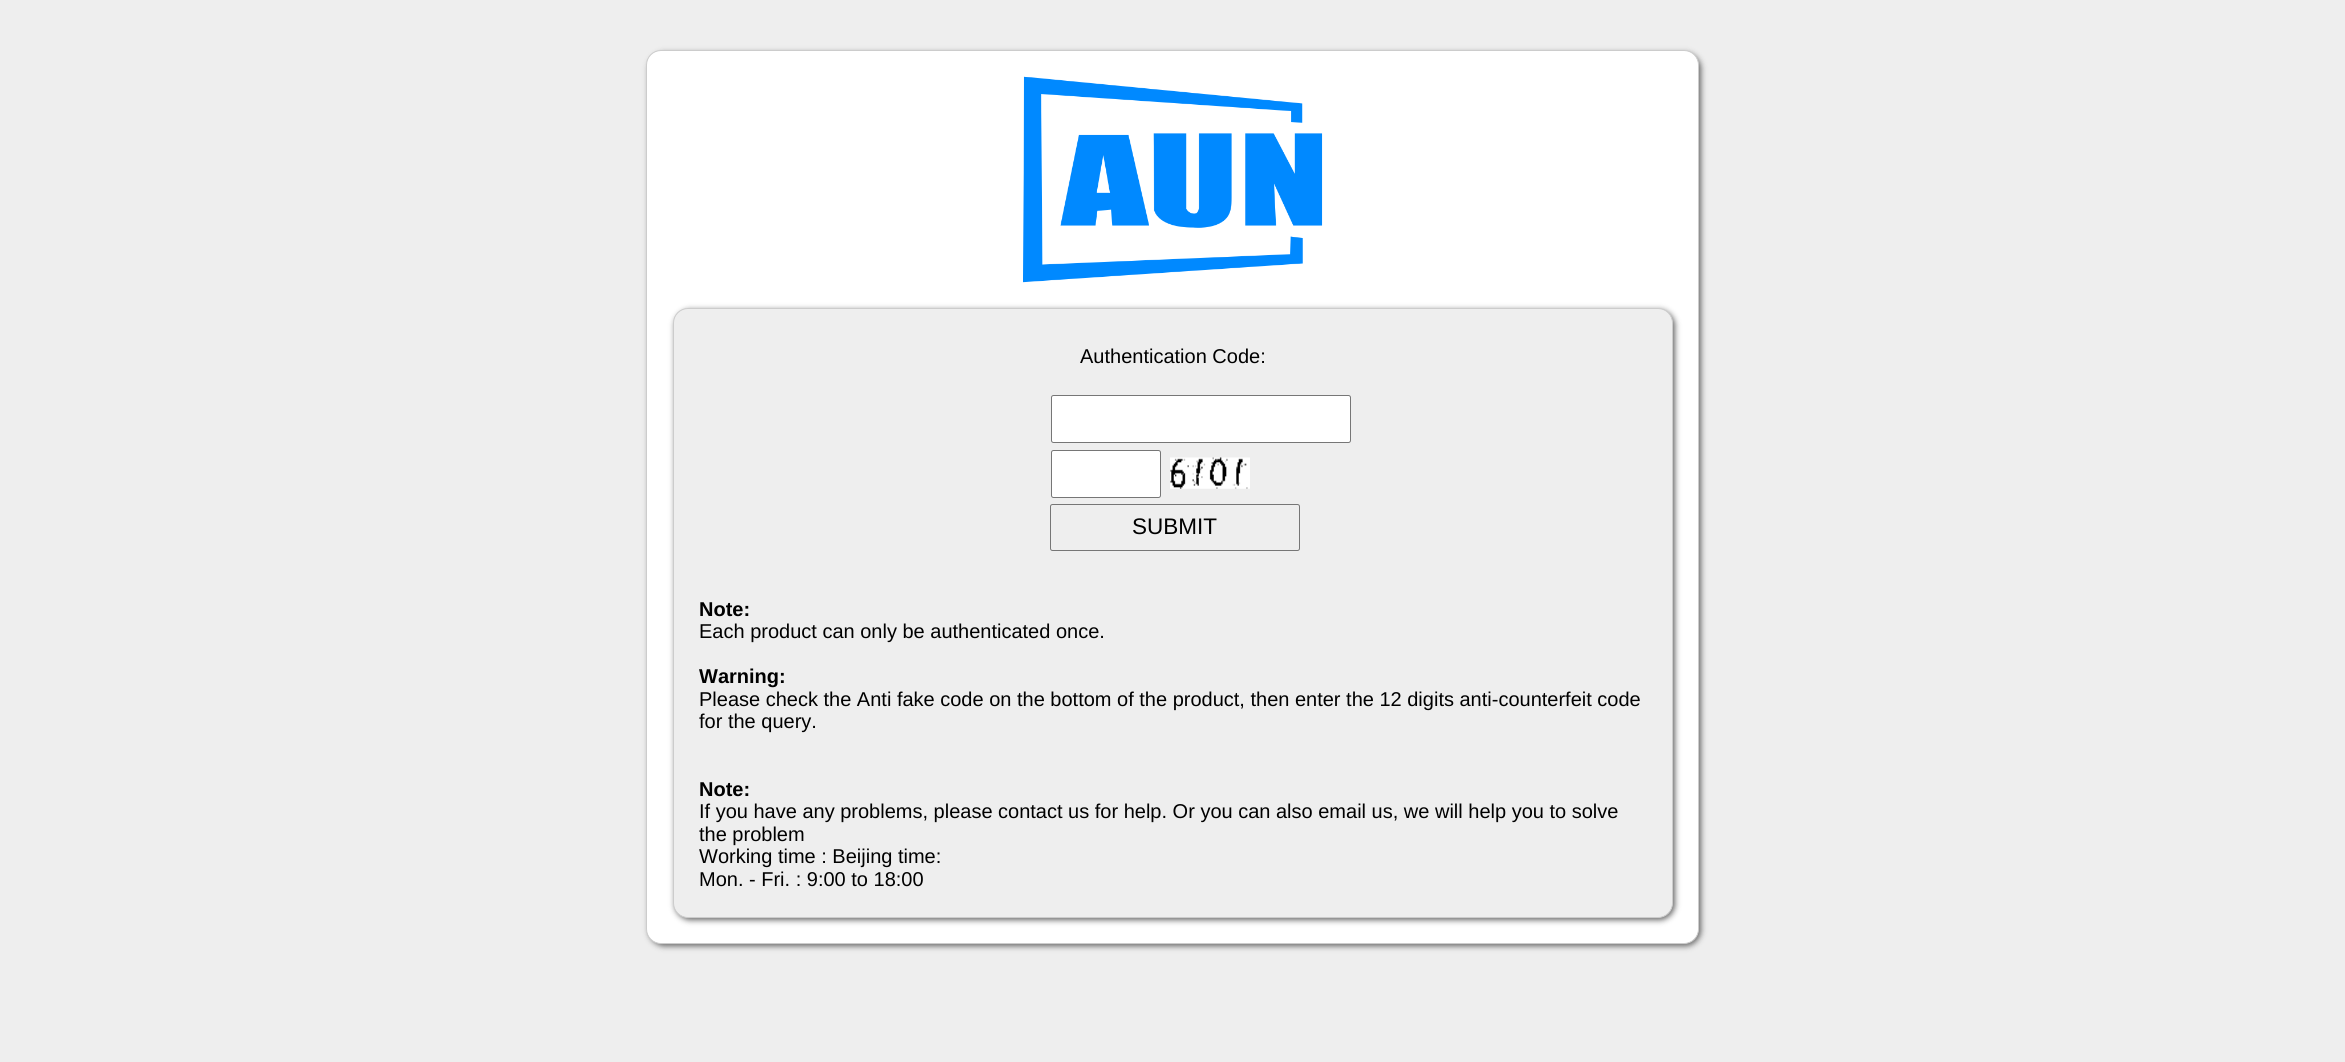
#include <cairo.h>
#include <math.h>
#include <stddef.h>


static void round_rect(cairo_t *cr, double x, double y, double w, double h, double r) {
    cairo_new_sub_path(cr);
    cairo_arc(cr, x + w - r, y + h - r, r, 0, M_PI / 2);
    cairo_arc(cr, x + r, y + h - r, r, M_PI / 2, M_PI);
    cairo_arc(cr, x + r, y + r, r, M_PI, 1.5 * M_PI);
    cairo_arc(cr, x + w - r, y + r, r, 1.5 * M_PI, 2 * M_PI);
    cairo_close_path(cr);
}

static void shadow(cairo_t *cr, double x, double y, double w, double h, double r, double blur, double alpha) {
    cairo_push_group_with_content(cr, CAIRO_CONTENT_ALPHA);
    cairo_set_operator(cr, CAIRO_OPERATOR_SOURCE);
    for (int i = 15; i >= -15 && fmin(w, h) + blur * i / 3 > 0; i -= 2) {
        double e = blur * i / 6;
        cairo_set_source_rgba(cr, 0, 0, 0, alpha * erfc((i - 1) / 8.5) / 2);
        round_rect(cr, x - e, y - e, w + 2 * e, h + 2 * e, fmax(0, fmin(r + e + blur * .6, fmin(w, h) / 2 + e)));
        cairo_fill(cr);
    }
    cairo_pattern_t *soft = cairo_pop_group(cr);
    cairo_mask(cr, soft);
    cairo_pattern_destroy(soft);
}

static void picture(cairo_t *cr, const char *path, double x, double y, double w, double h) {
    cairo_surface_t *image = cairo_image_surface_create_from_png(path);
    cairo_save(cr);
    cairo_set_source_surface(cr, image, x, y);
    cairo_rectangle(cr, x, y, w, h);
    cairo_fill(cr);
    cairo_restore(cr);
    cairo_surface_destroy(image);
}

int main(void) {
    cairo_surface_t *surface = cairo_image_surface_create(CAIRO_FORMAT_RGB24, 2345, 1062);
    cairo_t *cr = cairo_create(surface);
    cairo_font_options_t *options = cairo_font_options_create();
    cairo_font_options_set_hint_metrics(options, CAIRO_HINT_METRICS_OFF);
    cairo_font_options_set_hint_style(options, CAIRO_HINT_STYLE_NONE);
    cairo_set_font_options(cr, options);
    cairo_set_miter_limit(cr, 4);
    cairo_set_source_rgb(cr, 0.933, 0.933, 0.933);
    cairo_paint(cr);
    cairo_set_source_rgb(cr, 0.4, 0.4, 0.4);
    shadow(cr, 649, 53, 1052, 893, 15, 3, 1);
    cairo_set_source_rgb(cr, 1, 1, 1);
    round_rect(cr, 646.5, 50.5, 1052, 893, 14.5);
    cairo_fill_preserve(cr);
    cairo_set_source_rgb(cr, 0.8, 0.8, 0.8);
    cairo_set_line_width(cr, 1);
    cairo_stroke(cr);
    picture(cr, "img1.png", 1023, 76, 300, 207);
    cairo_set_source_rgb(cr, 0.4, 0.4, 0.4);
    shadow(cr, 675, 310, 1000, 610, 15, 3, 1);
    cairo_set_source_rgb(cr, 0.933, 0.933, 0.933);
    round_rect(cr, 673.5, 308.5, 999, 609, 14.5);
    cairo_fill_preserve(cr);
    cairo_set_source_rgb(cr, 0.8, 0.8, 0.8);
    cairo_stroke(cr);
    cairo_select_font_face(cr, "Liberation Sans", CAIRO_FONT_SLANT_NORMAL, CAIRO_FONT_WEIGHT_NORMAL);
    cairo_set_font_size(cr, 20);
    cairo_set_source_rgb(cr, 0, 0, 0);
    cairo_move_to(cr, 1080, 363);
    cairo_show_text(cr, "Authentication Code:");
    cairo_set_source_rgb(cr, 1, 1, 1);
    round_rect(cr, 1051.5, 395.5, 299, 47, 2);
    cairo_fill_preserve(cr);
    cairo_set_source_rgb(cr, 0.463, 0.463, 0.463);
    cairo_stroke(cr);
    cairo_set_source_rgb(cr, 1, 1, 1);
    round_rect(cr, 1051.5, 450.5, 109, 47, 2);
    cairo_fill_preserve(cr);
    cairo_set_source_rgb(cr, 0.463, 0.463, 0.463);
    cairo_stroke(cr);
    picture(cr, "img2.png", 1170, 457, 80, 32);
    round_rect(cr, 1050.5, 504.5, 249, 46, 2);
    cairo_stroke(cr);
    cairo_set_font_size(cr, 22.5);
    cairo_set_source_rgb(cr, 0, 0, 0);
    cairo_move_to(cr, 1132, 534);
    cairo_show_text(cr, "SUBMIT");
    cairo_select_font_face(cr, "Liberation Sans", CAIRO_FONT_SLANT_NORMAL, CAIRO_FONT_WEIGHT_BOLD);
    cairo_set_font_size(cr, 20);
    cairo_move_to(cr, 699, 616);
    cairo_show_text(cr, "Note:");
    cairo_select_font_face(cr, "Liberation Sans", CAIRO_FONT_SLANT_NORMAL, CAIRO_FONT_WEIGHT_NORMAL);
    cairo_move_to(cr, 699, 638);
    cairo_show_text(cr, "Each product can only be authenticated once.");
    cairo_select_font_face(cr, "Liberation Sans", CAIRO_FONT_SLANT_NORMAL, CAIRO_FONT_WEIGHT_BOLD);
    cairo_move_to(cr, 699, 683);
    cairo_show_text(cr, "Warning:");
    cairo_select_font_face(cr, "Liberation Sans", CAIRO_FONT_SLANT_NORMAL, CAIRO_FONT_WEIGHT_NORMAL);
    cairo_move_to(cr, 699, 706);
    cairo_show_text(cr, "Please check the Anti fake code on the bottom of the product, then enter the 12 digits anti-counterfeit code");
    cairo_move_to(cr, 699, 728);
    cairo_show_text(cr, "for the query.");
    cairo_select_font_face(cr, "Liberation Sans", CAIRO_FONT_SLANT_NORMAL, CAIRO_FONT_WEIGHT_BOLD);
    cairo_move_to(cr, 699, 796);
    cairo_show_text(cr, "Note:");
    cairo_select_font_face(cr, "Liberation Sans", CAIRO_FONT_SLANT_NORMAL, CAIRO_FONT_WEIGHT_NORMAL);
    cairo_move_to(cr, 699, 818);
    cairo_show_text(cr, "If you have any problems, please contact us for help. Or you can also email us, we will help you to solve");
    cairo_move_to(cr, 699, 841);
    cairo_show_text(cr, "the problem");
    cairo_move_to(cr, 699, 863);
    cairo_show_text(cr, "Working time : Beijing time:");
    cairo_move_to(cr, 699, 886);
    cairo_show_text(cr, "Mon. - Fri. : 9:00 to 18:00");
    cairo_surface_write_to_png(surface, "page.png");
    cairo_font_options_destroy(options);
    cairo_destroy(cr);
    cairo_surface_destroy(surface);
    return 0;
}
